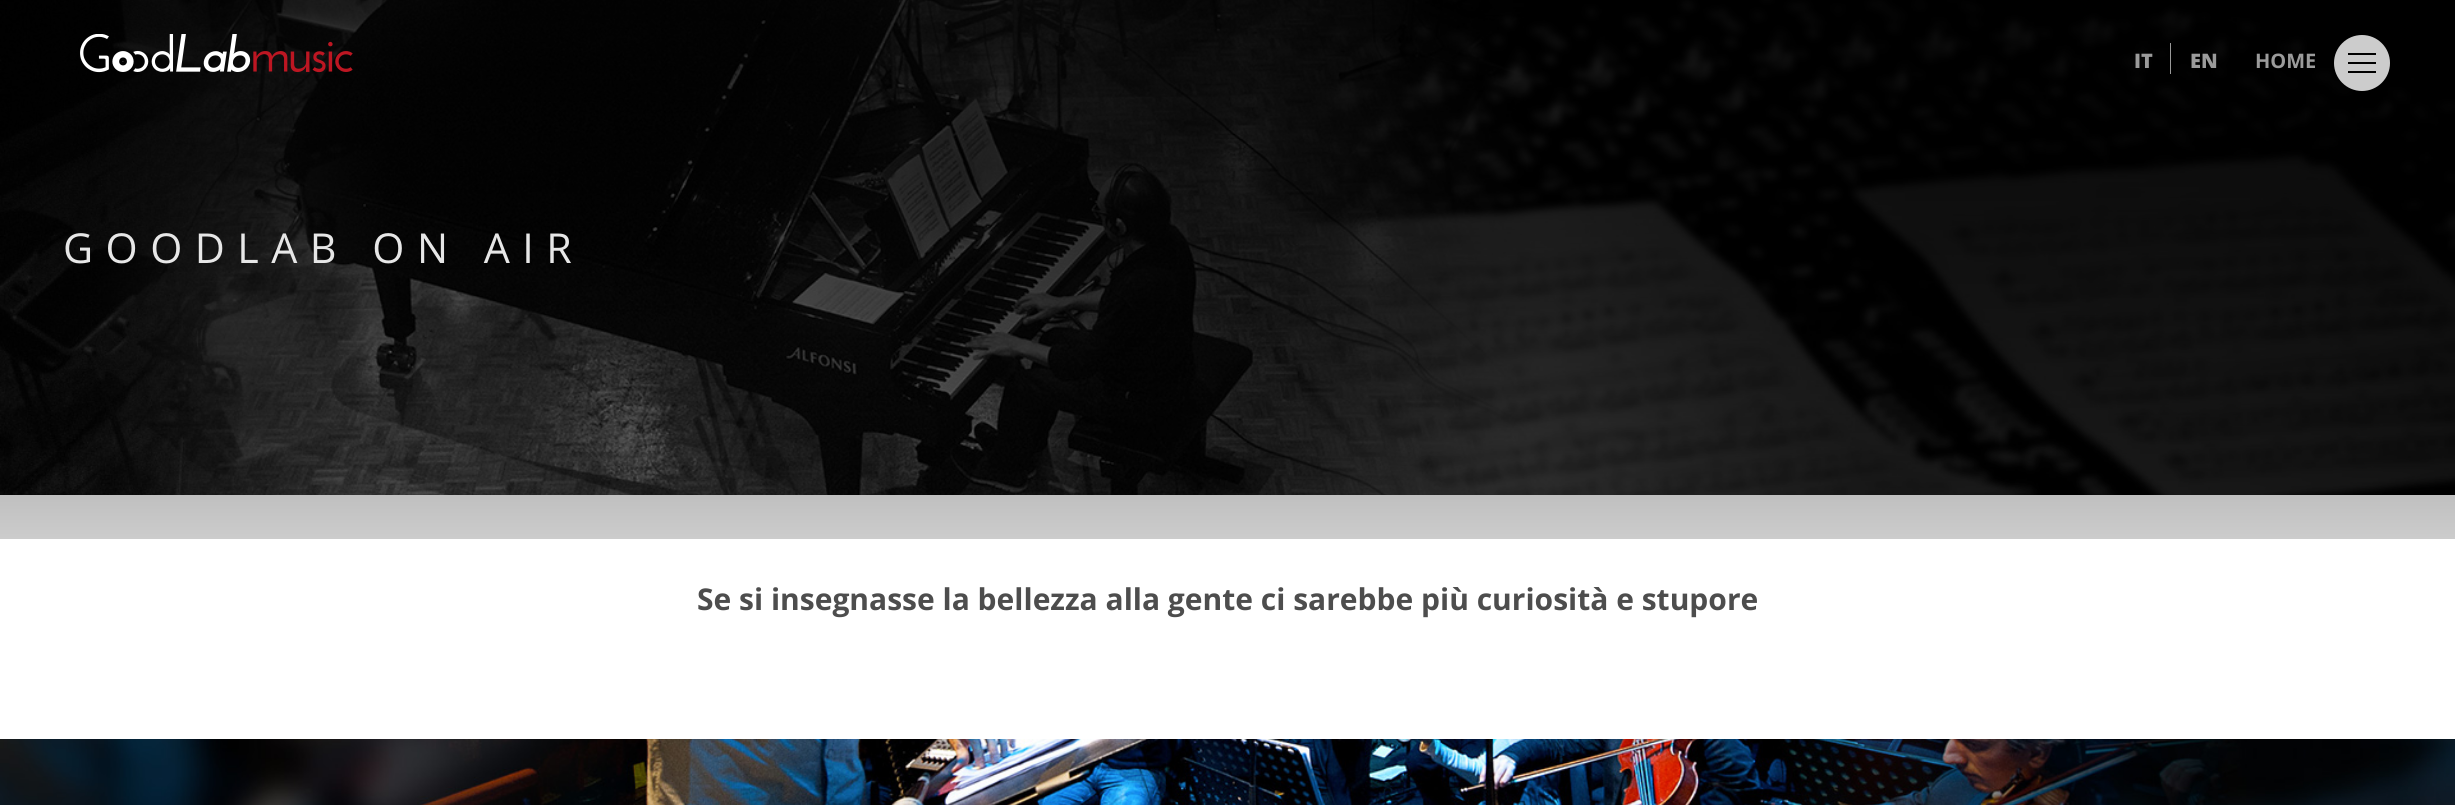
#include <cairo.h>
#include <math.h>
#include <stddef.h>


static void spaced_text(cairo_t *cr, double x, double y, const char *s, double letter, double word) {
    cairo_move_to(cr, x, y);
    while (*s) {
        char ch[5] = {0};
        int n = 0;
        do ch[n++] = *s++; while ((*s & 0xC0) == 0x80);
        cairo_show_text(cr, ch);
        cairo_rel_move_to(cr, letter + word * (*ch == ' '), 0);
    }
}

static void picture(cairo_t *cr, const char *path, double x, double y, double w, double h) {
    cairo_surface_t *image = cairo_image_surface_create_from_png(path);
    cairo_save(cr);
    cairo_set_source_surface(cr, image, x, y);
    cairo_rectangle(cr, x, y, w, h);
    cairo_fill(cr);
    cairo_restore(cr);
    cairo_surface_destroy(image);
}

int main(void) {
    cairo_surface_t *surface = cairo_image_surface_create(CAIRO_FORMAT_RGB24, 2455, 805);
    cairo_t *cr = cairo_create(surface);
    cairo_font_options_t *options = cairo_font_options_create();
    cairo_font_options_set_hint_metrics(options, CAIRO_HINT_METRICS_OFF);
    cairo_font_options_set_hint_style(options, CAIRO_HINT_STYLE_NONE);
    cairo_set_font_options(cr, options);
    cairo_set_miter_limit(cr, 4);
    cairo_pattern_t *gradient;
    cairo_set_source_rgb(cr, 1, 1, 1);
    cairo_paint(cr);
    picture(cr, "img1.png", 0, 739, 2455, 66);
    picture(cr, "img3.png", 0, 0, 2455, 495);
    gradient = cairo_pattern_create_linear(1228, 0, 1228, 539);
    cairo_pattern_add_color_stop_rgba(gradient, 0, 0, 0, 0, 0.7);
    cairo_pattern_add_color_stop_rgba(gradient, 0.33, 0, 0, 0, 0.6);
    cairo_pattern_add_color_stop_rgba(gradient, 0.67, 0, 0, 0, 0.4);
    cairo_pattern_add_color_stop_rgba(gradient, 1, 0, 0, 0, 0.2);
    cairo_set_source(cr, gradient);
    cairo_pattern_destroy(gradient);
    cairo_rectangle(cr, 0, 0, 2455, 539);
    cairo_fill(cr);
    picture(cr, "img2.png", 80, 34, 273, 39);
    cairo_select_font_face(cr, "Open Sans ExtraBold", CAIRO_FONT_SLANT_NORMAL, CAIRO_FONT_WEIGHT_NORMAL);
    cairo_set_font_size(cr, 20);
    cairo_set_source_rgb(cr, 0.608, 0.608, 0.608);
    cairo_move_to(cr, 2134, 68);
    cairo_show_text(cr, "IT");
    cairo_set_source_rgb(cr, 0.6, 0.6, 0.6);
    cairo_rectangle(cr, 2170, 43, 1, 31);
    cairo_fill(cr);
    cairo_set_source_rgb(cr, 0.608, 0.608, 0.608);
    cairo_move_to(cr, 2190, 68);
    cairo_show_text(cr, "EN");
    cairo_select_font_face(cr, "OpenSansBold", CAIRO_FONT_SLANT_NORMAL, CAIRO_FONT_WEIGHT_BOLD);
    cairo_move_to(cr, 2255, 68);
    cairo_show_text(cr, "HOME");
    cairo_select_font_face(cr, "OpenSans", CAIRO_FONT_SLANT_NORMAL, CAIRO_FONT_WEIGHT_NORMAL);
    cairo_set_font_size(cr, 41.25);
    cairo_set_source_rgb(cr, 0.906, 0.906, 0.906);
    spaced_text(cr, 63, 263, "GOODLAB ON AIR", 12.5, 0);
    cairo_select_font_face(cr, "OpenSansBold", CAIRO_FONT_SLANT_NORMAL, CAIRO_FONT_WEIGHT_BOLD);
    cairo_set_font_size(cr, 30);
    cairo_set_source_rgb(cr, 0.302, 0.302, 0.302);
    cairo_move_to(cr, 697, 610);
    cairo_show_text(cr, "Se si insegnasse la bellezza alla gente ci sarebbe più curiosità e stupore");
    cairo_set_source_rgb(cr, 0.8, 0.8, 0.8);
    cairo_new_path(cr);
    cairo_arc(cr, 2362, 63, 28, 0, 2 * M_PI);
    cairo_fill(cr);
    cairo_set_source_rgb(cr, 0, 0, 0);
    cairo_rectangle(cr, 2348, 53, 28, 2);
    cairo_fill(cr);
    cairo_rectangle(cr, 2348, 62, 28, 2);
    cairo_fill(cr);
    cairo_rectangle(cr, 2348, 71, 28, 2);
    cairo_fill(cr);
    cairo_surface_write_to_png(surface, "page.png");
    cairo_font_options_destroy(options);
    cairo_destroy(cr);
    cairo_surface_destroy(surface);
    return 0;
}
